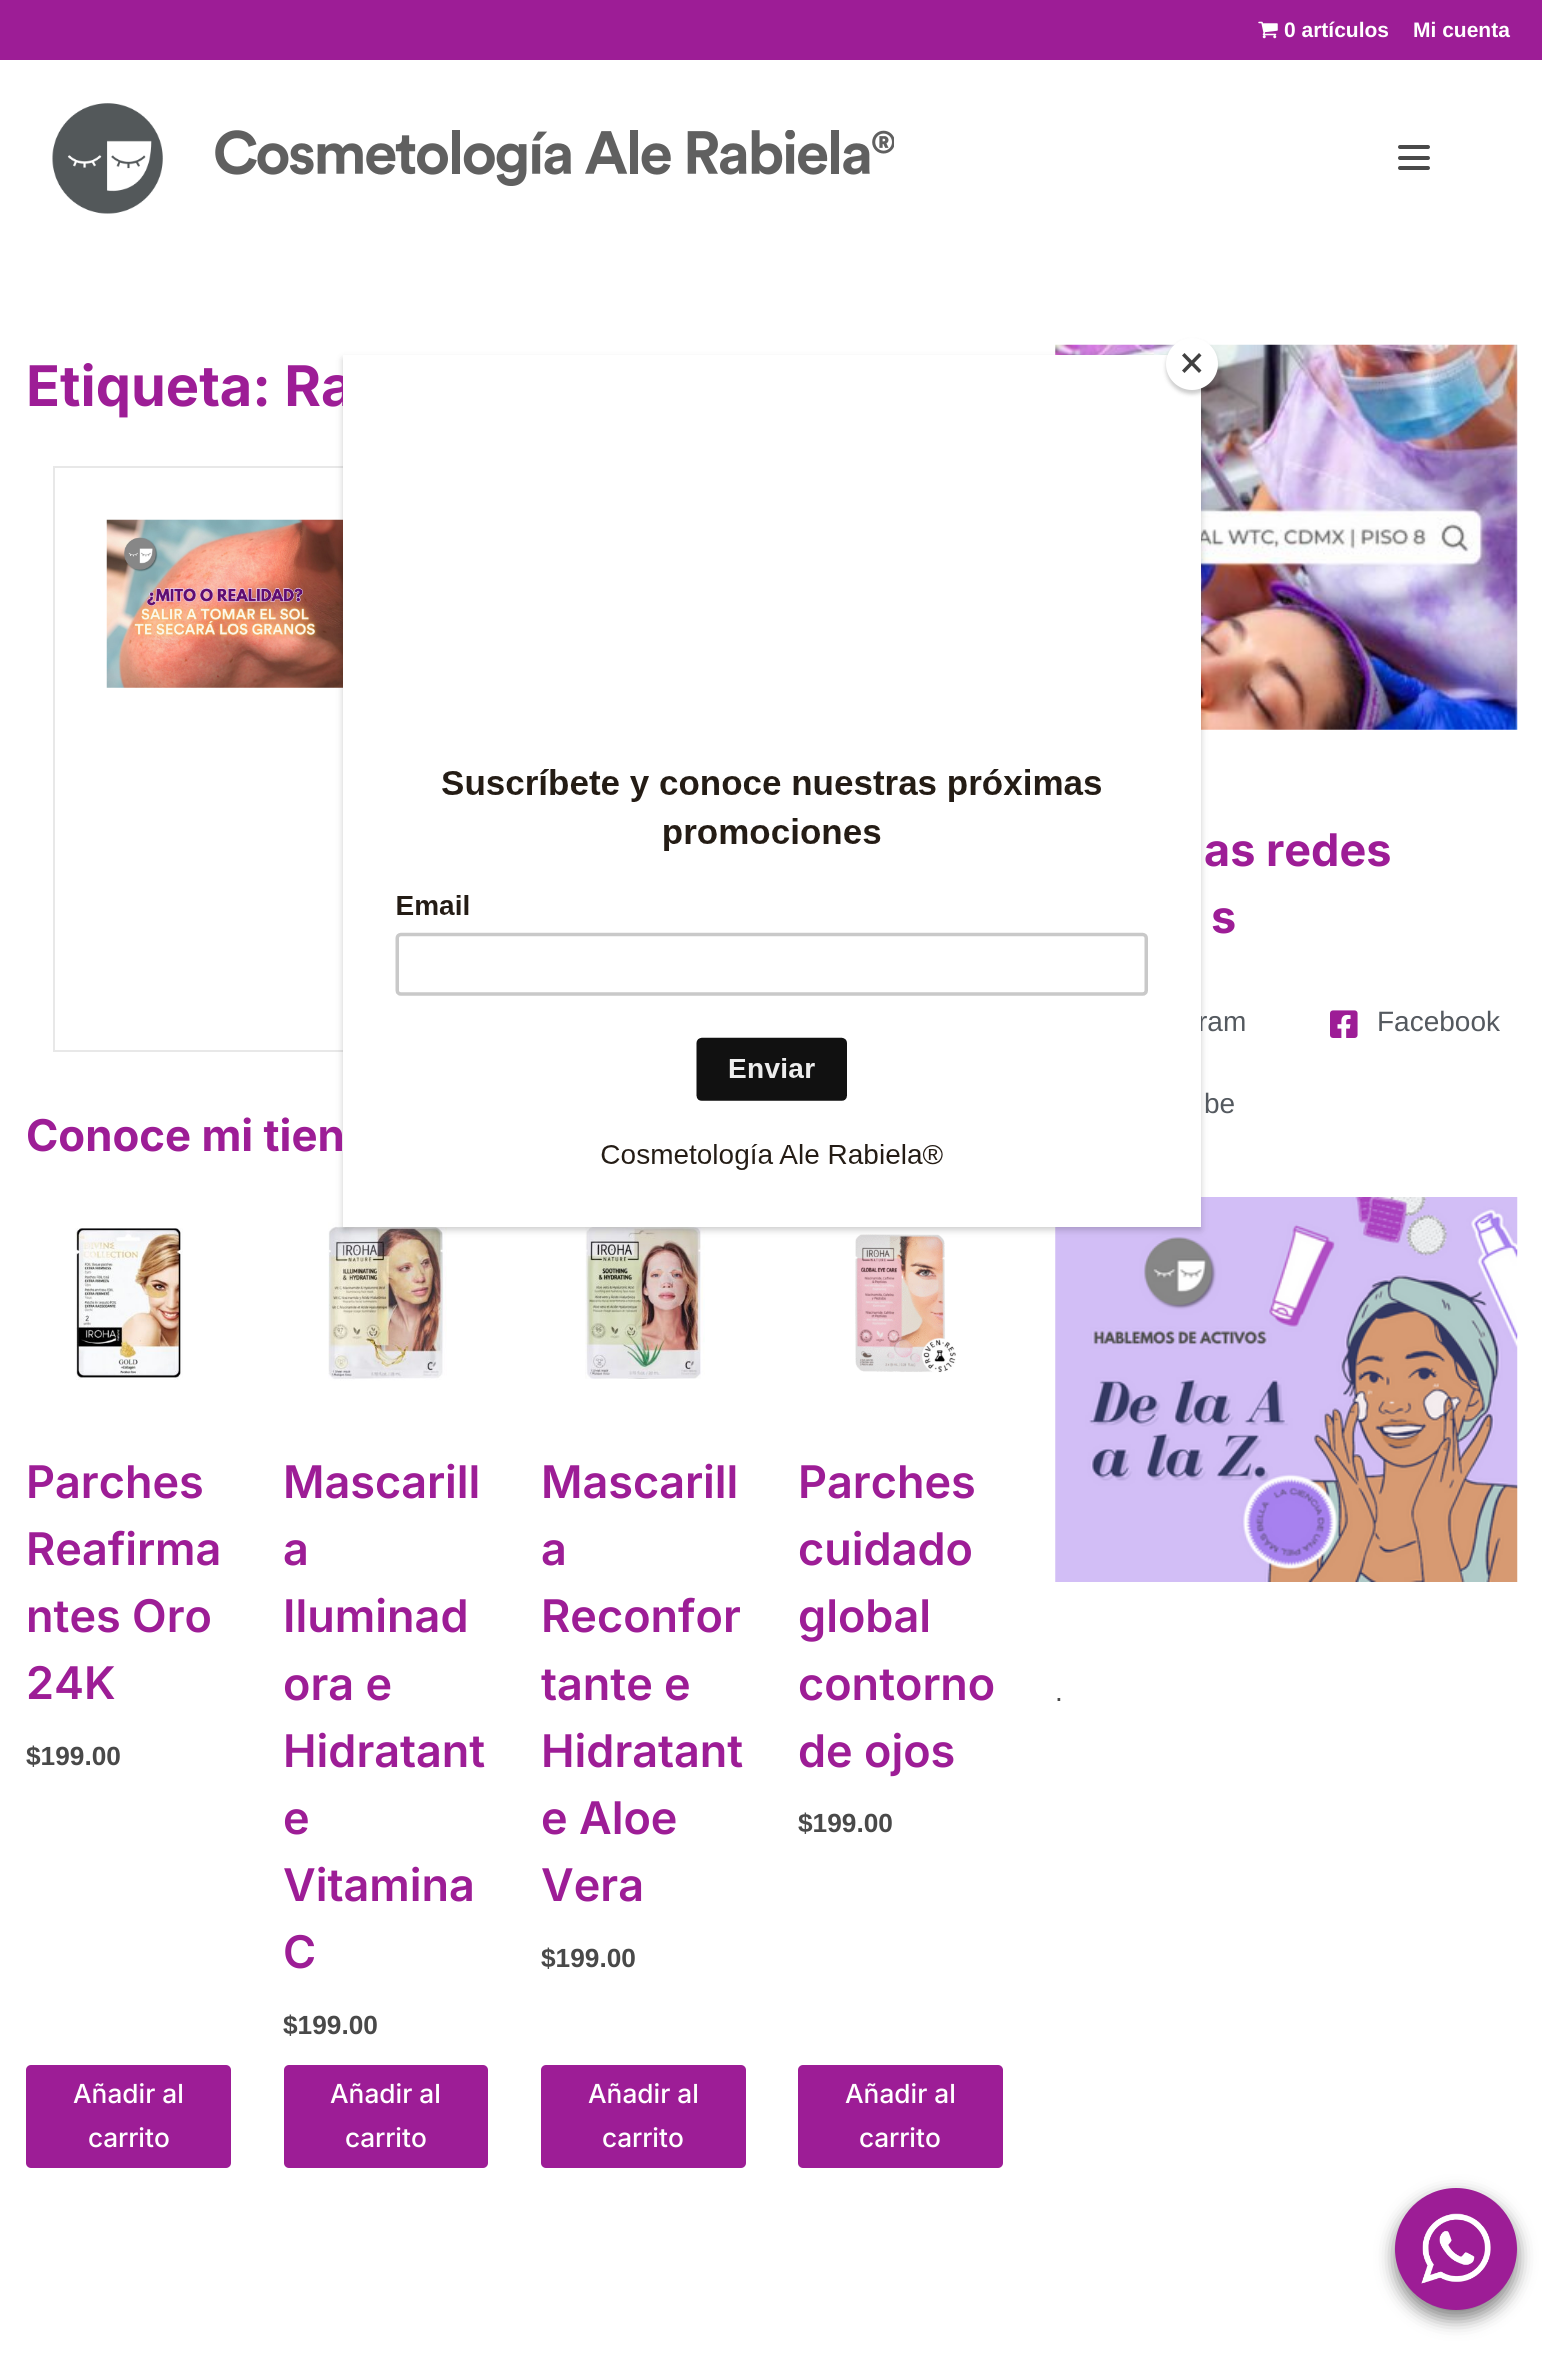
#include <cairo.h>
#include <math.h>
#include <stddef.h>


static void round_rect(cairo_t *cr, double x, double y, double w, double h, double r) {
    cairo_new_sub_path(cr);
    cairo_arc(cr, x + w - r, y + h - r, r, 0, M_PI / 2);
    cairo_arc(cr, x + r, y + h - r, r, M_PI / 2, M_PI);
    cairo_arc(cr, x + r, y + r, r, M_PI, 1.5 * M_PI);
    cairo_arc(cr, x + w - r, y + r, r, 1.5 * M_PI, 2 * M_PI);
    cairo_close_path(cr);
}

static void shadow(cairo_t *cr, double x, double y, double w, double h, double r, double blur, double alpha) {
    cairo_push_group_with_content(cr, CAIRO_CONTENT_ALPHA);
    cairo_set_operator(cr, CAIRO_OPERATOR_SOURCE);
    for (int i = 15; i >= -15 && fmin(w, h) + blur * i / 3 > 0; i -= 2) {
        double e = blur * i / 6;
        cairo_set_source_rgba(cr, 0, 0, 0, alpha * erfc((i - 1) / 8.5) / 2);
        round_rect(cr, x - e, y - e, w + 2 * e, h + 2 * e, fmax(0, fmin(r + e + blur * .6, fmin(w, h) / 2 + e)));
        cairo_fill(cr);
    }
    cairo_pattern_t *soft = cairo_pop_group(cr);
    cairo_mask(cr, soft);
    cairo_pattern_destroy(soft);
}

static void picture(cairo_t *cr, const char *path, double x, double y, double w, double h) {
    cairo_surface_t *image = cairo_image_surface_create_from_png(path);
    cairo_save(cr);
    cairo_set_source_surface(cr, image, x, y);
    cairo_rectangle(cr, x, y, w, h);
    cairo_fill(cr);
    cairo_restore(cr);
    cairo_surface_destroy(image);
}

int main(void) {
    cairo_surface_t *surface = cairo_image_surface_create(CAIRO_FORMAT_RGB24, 1542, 2362);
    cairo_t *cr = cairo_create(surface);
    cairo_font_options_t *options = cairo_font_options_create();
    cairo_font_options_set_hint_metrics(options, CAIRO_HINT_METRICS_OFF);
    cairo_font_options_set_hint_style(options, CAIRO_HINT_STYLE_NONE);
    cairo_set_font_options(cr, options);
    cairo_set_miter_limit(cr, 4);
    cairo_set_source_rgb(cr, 1, 1, 1);
    cairo_paint(cr);
    cairo_set_source_rgb(cr, 0.616, 0.114, 0.588);
    cairo_rectangle(cr, 0, 0, 1542, 60);
    cairo_fill(cr);
    picture(cr, "img1.png", 1258, 21, 20, 18);
    cairo_select_font_face(cr, "Liberation Sans", CAIRO_FONT_SLANT_NORMAL, CAIRO_FONT_WEIGHT_BOLD);
    cairo_set_font_size(cr, 21);
    cairo_set_source_rgb(cr, 1, 1, 1);
    cairo_move_to(cr, 1284, 37);
    cairo_show_text(cr, "0 artículos");
    cairo_move_to(cr, 1413, 37);
    cairo_show_text(cr, "Mi cuenta");
    picture(cr, "img2.png", 52, 103, 111, 111);
    picture(cr, "img3.png", 215, 130, 679, 56);
    cairo_set_source_rgb(cr, 0.286, 0.286, 0.286);
    round_rect(cr, 1398, 145, 32, 4, 2);
    cairo_fill(cr);
    round_rect(cr, 1398, 156, 32, 4, 2);
    cairo_fill(cr);
    round_rect(cr, 1398, 166, 32, 4, 2);
    cairo_fill(cr);
    cairo_set_source_rgb(cr, 0, 0, 0);
    shadow(cr, 1395, 2196, 122, 123, 61, 9, 0.5);
    cairo_set_source_rgb(cr, 0.616, 0.114, 0.588);
    cairo_arc(cr, 1456, 2249, 61, 0, 2 * M_PI);
    cairo_fill(cr);
    picture(cr, "img4.png", 1421, 2213, 70, 71);
    cairo_rectangle(cr, 54, 467, 922, 584);
    cairo_set_source_rgb(cr, 0.91, 0.91, 0.91);
    cairo_stroke(cr);
    picture(cr, "img6.png", 106, 519, 237, 169);
    picture(cr, "img8.png", 328, 1222, 119, 159);
    picture(cr, "img9.png", 585, 1227, 120, 152);
    picture(cr, "img10.png", 855, 1234, 101, 139);
    picture(cr, "img11.png", 1055, 344, 463, 386);
    picture(cr, "img13.png", 1055, 1197, 463, 385);
    cairo_set_source_rgb(cr, 0, 0, 0);
    shadow(cr, 343, 359, 858, 871, 0, 3.5, 0.2);
    cairo_select_font_face(cr, "Inter", CAIRO_FONT_SLANT_NORMAL, CAIRO_FONT_WEIGHT_BOLD);
    cairo_set_font_size(cr, 56);
    cairo_set_source_rgb(cr, 0.616, 0.114, 0.588);
    cairo_move_to(cr, 26, 406);
    cairo_show_text(cr, "Etiqueta: Ra");
    cairo_select_font_face(cr, "Liberation Sans", CAIRO_FONT_SLANT_NORMAL, CAIRO_FONT_WEIGHT_NORMAL);
    cairo_set_font_size(cr, 28);
    cairo_set_source_rgb(cr, 0.329, 0.349, 0.373);
    cairo_move_to(cr, 1198, 1031);
    cairo_show_text(cr, "ram");
    picture(cr, "img5.png", 343, 355, 858, 872);
    cairo_set_source_rgb(cr, 0, 0, 0);
    shadow(cr, 1166, 341, 52, 53, 26, 2, 0.2);
    cairo_set_source_rgb(cr, 1, 1, 1);
    cairo_arc(cr, 1192, 364, 26, 0, 2 * M_PI);
    cairo_fill(cr);
    cairo_set_source_rgb(cr, 0.255, 0.255, 0.255);
    cairo_new_path(cr);
    cairo_move_to(cr, 1199, 353);
    cairo_line_to(cr, 1201.5, 355.5);
    cairo_line_to(cr, 1184.5, 373);
    cairo_line_to(cr, 1182, 370.5);
    cairo_close_path(cr);
    cairo_fill(cr);
    cairo_new_path(cr);
    cairo_move_to(cr, 1182, 355.5);
    cairo_line_to(cr, 1184.5, 353);
    cairo_line_to(cr, 1201.5, 370.5);
    cairo_line_to(cr, 1199, 373);
    cairo_close_path(cr);
    cairo_fill(cr);
    cairo_select_font_face(cr, "Inter", CAIRO_FONT_SLANT_NORMAL, CAIRO_FONT_WEIGHT_BOLD);
    cairo_set_font_size(cr, 43.75);
    cairo_set_source_rgb(cr, 0.616, 0.114, 0.588);
    cairo_move_to(cr, 26, 1151);
    cairo_show_text(cr, "Conoce mi tien");
    picture(cr, "img7.png", 75, 1228, 108, 152);
    cairo_select_font_face(cr, "Inter SemiBold", CAIRO_FONT_SLANT_NORMAL, CAIRO_FONT_WEIGHT_NORMAL);
    cairo_set_font_size(cr, 45);
    cairo_move_to(cr, 26, 1498);
    cairo_show_text(cr, "Parches");
    cairo_move_to(cr, 26, 1565);
    cairo_show_text(cr, "Reafirma");
    cairo_move_to(cr, 26, 1632);
    cairo_show_text(cr, "ntes Oro");
    cairo_move_to(cr, 26, 1699);
    cairo_show_text(cr, "24K");
    cairo_select_font_face(cr, "Liberation Sans", CAIRO_FONT_SLANT_NORMAL, CAIRO_FONT_WEIGHT_BOLD);
    cairo_set_font_size(cr, 26.25);
    cairo_set_source_rgb(cr, 0.286, 0.286, 0.286);
    cairo_move_to(cr, 26, 1765);
    cairo_show_text(cr, "$199.00");
    cairo_set_source_rgb(cr, 0.616, 0.114, 0.588);
    round_rect(cr, 26, 2065, 205, 103, 5);
    cairo_fill(cr);
    cairo_select_font_face(cr, "Inter Medium", CAIRO_FONT_SLANT_NORMAL, CAIRO_FONT_WEIGHT_NORMAL);
    cairo_set_source_rgb(cr, 1, 1, 1);
    cairo_move_to(cr, 73, 2103);
    cairo_show_text(cr, "Añadir al");
    cairo_move_to(cr, 88, 2147);
    cairo_show_text(cr, "carrito");
    cairo_select_font_face(cr, "Inter SemiBold", CAIRO_FONT_SLANT_NORMAL, CAIRO_FONT_WEIGHT_NORMAL);
    cairo_set_font_size(cr, 45);
    cairo_set_source_rgb(cr, 0.616, 0.114, 0.588);
    cairo_move_to(cr, 283, 1498);
    cairo_show_text(cr, "Mascarill");
    cairo_move_to(cr, 283, 1565);
    cairo_show_text(cr, "a");
    cairo_move_to(cr, 283, 1632);
    cairo_show_text(cr, "Iluminad");
    cairo_move_to(cr, 283, 1700);
    cairo_show_text(cr, "ora e");
    cairo_move_to(cr, 283, 1767);
    cairo_show_text(cr, "Hidratant");
    cairo_move_to(cr, 283, 1834);
    cairo_show_text(cr, "e");
    cairo_move_to(cr, 283, 1901);
    cairo_show_text(cr, "Vitamina");
    cairo_move_to(cr, 283, 1968);
    cairo_show_text(cr, "C");
    cairo_select_font_face(cr, "Liberation Sans", CAIRO_FONT_SLANT_NORMAL, CAIRO_FONT_WEIGHT_BOLD);
    cairo_set_font_size(cr, 26.25);
    cairo_set_source_rgb(cr, 0.286, 0.286, 0.286);
    cairo_move_to(cr, 283, 2034);
    cairo_show_text(cr, "$199.00");
    cairo_set_source_rgb(cr, 0.616, 0.114, 0.588);
    round_rect(cr, 284, 2065, 204, 103, 5);
    cairo_fill(cr);
    cairo_select_font_face(cr, "Inter Medium", CAIRO_FONT_SLANT_NORMAL, CAIRO_FONT_WEIGHT_NORMAL);
    cairo_set_source_rgb(cr, 1, 1, 1);
    cairo_move_to(cr, 330, 2103);
    cairo_show_text(cr, "Añadir al");
    cairo_move_to(cr, 345, 2147);
    cairo_show_text(cr, "carrito");
    cairo_select_font_face(cr, "Inter SemiBold", CAIRO_FONT_SLANT_NORMAL, CAIRO_FONT_WEIGHT_NORMAL);
    cairo_set_font_size(cr, 45);
    cairo_set_source_rgb(cr, 0.616, 0.114, 0.588);
    cairo_move_to(cr, 541, 1498);
    cairo_show_text(cr, "Mascarill");
    cairo_move_to(cr, 541, 1565);
    cairo_show_text(cr, "a");
    cairo_move_to(cr, 541, 1632);
    cairo_show_text(cr, "Reconfor");
    cairo_move_to(cr, 541, 1700);
    cairo_show_text(cr, "tante e");
    cairo_move_to(cr, 541, 1767);
    cairo_show_text(cr, "Hidratant");
    cairo_move_to(cr, 541, 1834);
    cairo_show_text(cr, "e Aloe");
    cairo_move_to(cr, 541, 1901);
    cairo_show_text(cr, "Vera");
    cairo_select_font_face(cr, "Liberation Sans", CAIRO_FONT_SLANT_NORMAL, CAIRO_FONT_WEIGHT_BOLD);
    cairo_set_font_size(cr, 26.25);
    cairo_set_source_rgb(cr, 0.286, 0.286, 0.286);
    cairo_move_to(cr, 541, 1967);
    cairo_show_text(cr, "$199.00");
    cairo_set_source_rgb(cr, 0.616, 0.114, 0.588);
    round_rect(cr, 541, 2065, 205, 103, 5);
    cairo_fill(cr);
    cairo_select_font_face(cr, "Inter Medium", CAIRO_FONT_SLANT_NORMAL, CAIRO_FONT_WEIGHT_NORMAL);
    cairo_set_source_rgb(cr, 1, 1, 1);
    cairo_move_to(cr, 588, 2103);
    cairo_show_text(cr, "Añadir al");
    cairo_move_to(cr, 602, 2147);
    cairo_show_text(cr, "carrito");
    cairo_select_font_face(cr, "Inter SemiBold", CAIRO_FONT_SLANT_NORMAL, CAIRO_FONT_WEIGHT_NORMAL);
    cairo_set_font_size(cr, 45);
    cairo_set_source_rgb(cr, 0.616, 0.114, 0.588);
    cairo_move_to(cr, 798, 1498);
    cairo_show_text(cr, "Parches");
    cairo_move_to(cr, 798, 1565);
    cairo_show_text(cr, "cuidado");
    cairo_move_to(cr, 798, 1632);
    cairo_show_text(cr, "global");
    cairo_move_to(cr, 798, 1700);
    cairo_show_text(cr, "contorno");
    cairo_move_to(cr, 798, 1767);
    cairo_show_text(cr, "de ojos");
    cairo_select_font_face(cr, "Liberation Sans", CAIRO_FONT_SLANT_NORMAL, CAIRO_FONT_WEIGHT_BOLD);
    cairo_set_font_size(cr, 26.25);
    cairo_set_source_rgb(cr, 0.286, 0.286, 0.286);
    cairo_move_to(cr, 798, 1832);
    cairo_show_text(cr, "$199.00");
    cairo_set_source_rgb(cr, 0.616, 0.114, 0.588);
    round_rect(cr, 798, 2065, 205, 103, 5);
    cairo_fill(cr);
    cairo_select_font_face(cr, "Inter Medium", CAIRO_FONT_SLANT_NORMAL, CAIRO_FONT_WEIGHT_NORMAL);
    cairo_set_source_rgb(cr, 1, 1, 1);
    cairo_move_to(cr, 845, 2103);
    cairo_show_text(cr, "Añadir al");
    cairo_move_to(cr, 859, 2147);
    cairo_show_text(cr, "carrito");
    cairo_select_font_face(cr, "Inter", CAIRO_FONT_SLANT_NORMAL, CAIRO_FONT_WEIGHT_BOLD);
    cairo_set_font_size(cr, 45);
    cairo_set_source_rgb(cr, 0.616, 0.114, 0.588);
    cairo_move_to(cr, 1204, 866);
    cairo_show_text(cr, "as redes");
    cairo_move_to(cr, 1211, 933);
    cairo_show_text(cr, "s");
    picture(cr, "img12.png", 1330, 1010, 28, 28);
    cairo_select_font_face(cr, "Liberation Sans", CAIRO_FONT_SLANT_NORMAL, CAIRO_FONT_WEIGHT_NORMAL);
    cairo_set_font_size(cr, 28);
    cairo_set_source_rgb(cr, 0.329, 0.349, 0.373);
    cairo_move_to(cr, 1377, 1031);
    cairo_show_text(cr, "Facebook");
    cairo_move_to(cr, 1204, 1113);
    cairo_show_text(cr, "be");
    cairo_set_source_rgb(cr, 0.286, 0.286, 0.286);
    cairo_move_to(cr, 1055, 1701);
    cairo_show_text(cr, ".");
    cairo_surface_write_to_png(surface, "page.png");
    cairo_font_options_destroy(options);
    cairo_destroy(cr);
    cairo_surface_destroy(surface);
    return 0;
}
